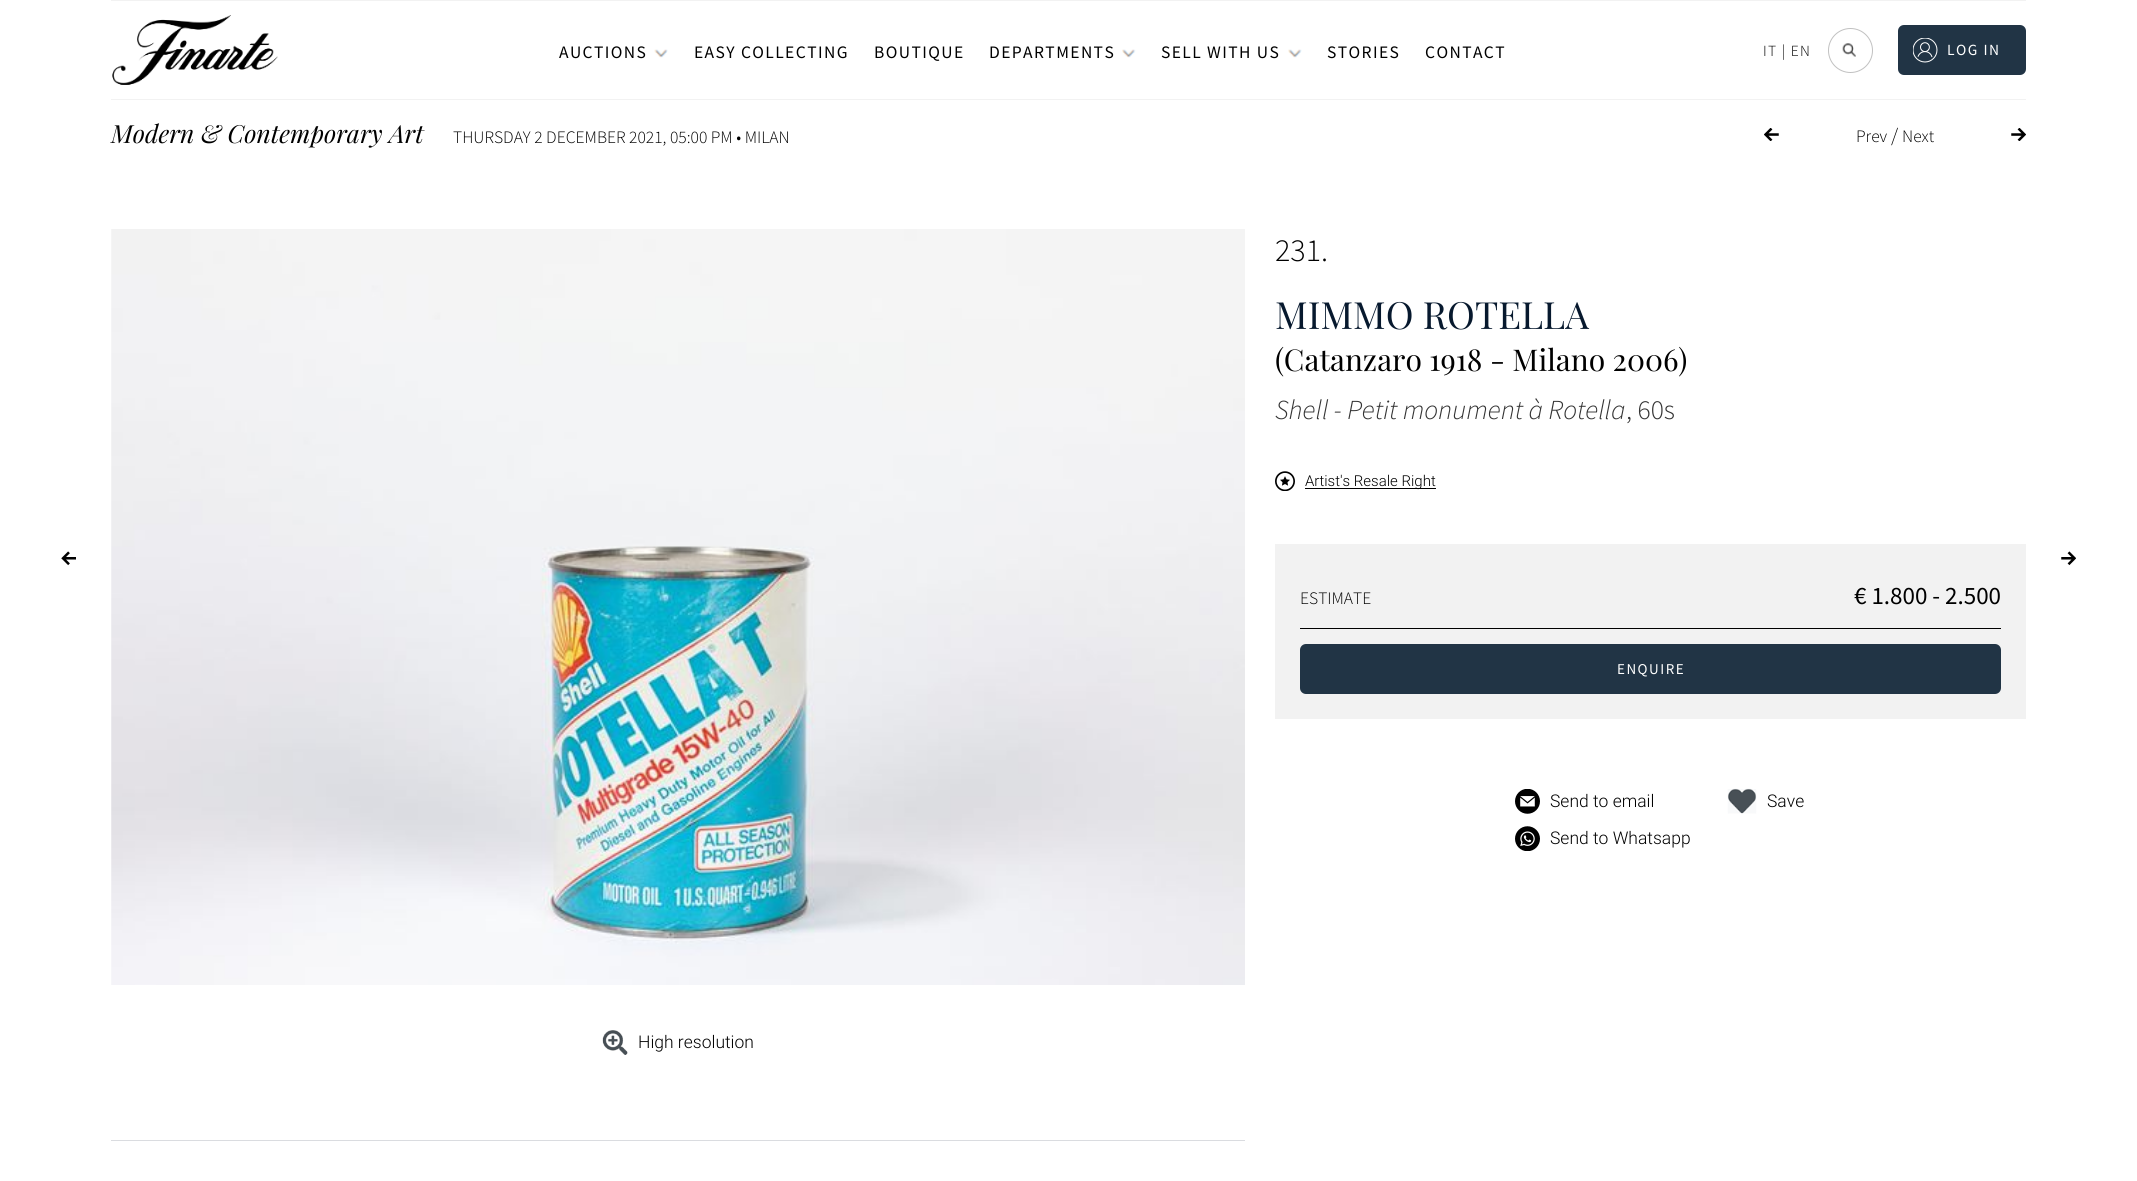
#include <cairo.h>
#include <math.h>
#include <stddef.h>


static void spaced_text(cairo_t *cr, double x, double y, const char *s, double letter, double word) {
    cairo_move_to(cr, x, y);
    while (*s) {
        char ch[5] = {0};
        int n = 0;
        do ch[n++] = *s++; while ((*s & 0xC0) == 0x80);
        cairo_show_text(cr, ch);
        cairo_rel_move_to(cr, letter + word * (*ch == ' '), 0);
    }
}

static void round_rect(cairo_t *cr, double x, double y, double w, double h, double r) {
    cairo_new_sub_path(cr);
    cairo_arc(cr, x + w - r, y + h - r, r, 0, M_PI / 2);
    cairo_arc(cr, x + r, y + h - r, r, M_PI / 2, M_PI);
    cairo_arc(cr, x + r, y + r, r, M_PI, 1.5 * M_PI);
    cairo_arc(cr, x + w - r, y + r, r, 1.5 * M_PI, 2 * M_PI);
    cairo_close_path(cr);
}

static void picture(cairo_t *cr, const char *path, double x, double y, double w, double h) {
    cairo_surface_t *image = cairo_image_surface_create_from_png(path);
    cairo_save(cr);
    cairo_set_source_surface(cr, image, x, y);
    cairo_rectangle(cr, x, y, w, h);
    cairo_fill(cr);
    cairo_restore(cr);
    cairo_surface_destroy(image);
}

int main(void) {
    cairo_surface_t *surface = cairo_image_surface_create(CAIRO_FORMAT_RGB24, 2137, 1181);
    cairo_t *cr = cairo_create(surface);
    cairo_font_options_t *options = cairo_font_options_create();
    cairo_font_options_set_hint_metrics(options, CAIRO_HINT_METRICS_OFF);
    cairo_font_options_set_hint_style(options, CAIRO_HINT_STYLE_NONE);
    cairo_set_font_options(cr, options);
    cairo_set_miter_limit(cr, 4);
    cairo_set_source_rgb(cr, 1, 1, 1);
    cairo_paint(cr);
    cairo_set_source_rgb(cr, 0.949, 0.949, 0.949);
    cairo_rectangle(cr, 111, 0, 1915, 1);
    cairo_fill(cr);
    cairo_rectangle(cr, 111, 99, 1915, 1);
    cairo_fill(cr);
    picture(cr, "img1.png", 112, 15, 166, 70);
    cairo_select_font_face(cr, "Source Sans Pro", CAIRO_FONT_SLANT_NORMAL, CAIRO_FONT_WEIGHT_NORMAL);
    cairo_set_font_size(cr, 17.5);
    cairo_set_source_rgb(cr, 0, 0, 0);
    spaced_text(cr, 559, 58, "AUCTIONS", 1.4, 0);
    picture(cr, "img2.png", 654, 49, 14, 9);
    spaced_text(cr, 694, 58, "EASY COLLECTING", 1.4, 0);
    spaced_text(cr, 874, 58, "BOUTIQUE", 1.4, 0);
    spaced_text(cr, 989, 58, "DEPARTMENTS", 1.4, 0);
    picture(cr, "img3.png", 1122, 49, 14, 9);
    spaced_text(cr, 1161, 58, "SELL WITH US", 1.4, 0);
    picture(cr, "img4.png", 1288, 49, 14, 9);
    spaced_text(cr, 1327, 58, "STORIES", 1.4, 0);
    spaced_text(cr, 1425, 58, "CONTACT", 1.4, 0);
    cairo_select_font_face(cr, "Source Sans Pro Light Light", CAIRO_FONT_SLANT_NORMAL, CAIRO_FONT_WEIGHT_NORMAL);
    cairo_set_font_size(cr, 15.5);
    spaced_text(cr, 1763, 56, "IT | EN", 1.25, 0);
    cairo_new_path(cr);
    cairo_arc(cr, 1850.5, 50.5, 22, 0, 2 * M_PI);
    cairo_set_source_rgb(cr, 0.757, 0.757, 0.757);
    cairo_set_line_width(cr, 1);
    cairo_stroke(cr);
    picture(cr, "img5.png", 1842, 43, 14, 14);
    cairo_set_source_rgb(cr, 0.129, 0.204, 0.271);
    round_rect(cr, 1898, 25, 128, 50, 6);
    cairo_fill(cr);
    picture(cr, "img6.png", 1913, 38, 25, 25);
    cairo_select_font_face(cr, "Source Sans Pro", CAIRO_FONT_SLANT_NORMAL, CAIRO_FONT_WEIGHT_NORMAL);
    cairo_set_source_rgb(cr, 1, 1, 1);
    spaced_text(cr, 1947, 55, "LOG IN", 1.5, 0);
    cairo_select_font_face(cr, "Playfair Display", CAIRO_FONT_SLANT_ITALIC, CAIRO_FONT_WEIGHT_NORMAL);
    cairo_set_font_size(cr, 25);
    cairo_set_source_rgb(cr, 0, 0, 0);
    cairo_move_to(cr, 111, 143);
    cairo_show_text(cr, "Modern & Contemporary Art");
    cairo_select_font_face(cr, "Source Sans Pro Light Light", CAIRO_FONT_SLANT_NORMAL, CAIRO_FONT_WEIGHT_NORMAL);
    cairo_set_font_size(cr, 17.5);
    cairo_move_to(cr, 453, 143);
    cairo_show_text(cr, "THURSDAY 2 DECEMBER 2021, 05:00 PM • MILAN");
    picture(cr, "img7.png", 1764, 128, 15, 13);
    cairo_move_to(cr, 1856, 142);
    cairo_show_text(cr, "Prev");
    cairo_set_font_size(cr, 20);
    cairo_move_to(cr, 1891, 142);
    cairo_show_text(cr, "/");
    cairo_set_font_size(cr, 17.5);
    cairo_move_to(cr, 1902, 142);
    cairo_show_text(cr, "Next");
    picture(cr, "img8.png", 2011, 128, 15, 13);
    cairo_set_font_size(cr, 32);
    cairo_move_to(cr, 1275, 261);
    cairo_show_text(cr, "231.");
    cairo_select_font_face(cr, "Playfair Display", CAIRO_FONT_SLANT_NORMAL, CAIRO_FONT_WEIGHT_NORMAL);
    cairo_set_font_size(cr, 37.5);
    cairo_set_source_rgb(cr, 0.031, 0.098, 0.18);
    cairo_move_to(cr, 1275, 329);
    cairo_show_text(cr, "MIMMO ROTELLA");
    cairo_set_font_size(cr, 30);
    cairo_set_source_rgb(cr, 0, 0, 0);
    cairo_move_to(cr, 1275, 371);
    cairo_show_text(cr, "(Catanzaro 1918 - Milano 2006)");
    cairo_select_font_face(cr, "Source Sans Pro Light Light", CAIRO_FONT_SLANT_ITALIC, CAIRO_FONT_WEIGHT_NORMAL);
    cairo_set_font_size(cr, 27.5);
    cairo_set_source_rgb(cr, 0.2, 0.2, 0.2);
    cairo_move_to(cr, 1275, 419);
    cairo_show_text(cr, "Shell - Petit monument à Rotella");
    cairo_select_font_face(cr, "Source Sans Pro Light Light", CAIRO_FONT_SLANT_NORMAL, CAIRO_FONT_WEIGHT_NORMAL);
    cairo_move_to(cr, 1626, 419);
    cairo_show_text(cr, ", 60s");
    picture(cr, "img9.png", 1275, 471, 20, 20);
    cairo_set_source_rgb(cr, 0, 0, 0);
    cairo_rectangle(cr, 1305, 488, 131, 1);
    cairo_fill(cr);
    cairo_select_font_face(cr, "Roboto Light", CAIRO_FONT_SLANT_NORMAL, CAIRO_FONT_WEIGHT_NORMAL);
    cairo_set_font_size(cr, 15);
    cairo_move_to(cr, 1305, 486);
    cairo_show_text(cr, "Artist's Resale Right");
    cairo_set_source_rgb(cr, 0.949, 0.949, 0.949);
    cairo_rectangle(cr, 1275, 544, 751, 175);
    cairo_fill(cr);
    cairo_set_source_rgb(cr, 0, 0, 0);
    cairo_rectangle(cr, 1300, 628, 701, 1);
    cairo_fill(cr);
    cairo_select_font_face(cr, "Source Sans Pro Light Light", CAIRO_FONT_SLANT_NORMAL, CAIRO_FONT_WEIGHT_NORMAL);
    cairo_set_font_size(cr, 17.5);
    cairo_move_to(cr, 1300, 604);
    cairo_show_text(cr, "ESTIMATE");
    cairo_select_font_face(cr, "Source Sans Pro", CAIRO_FONT_SLANT_NORMAL, CAIRO_FONT_WEIGHT_NORMAL);
    cairo_set_font_size(cr, 25);
    cairo_move_to(cr, 1854, 604);
    cairo_show_text(cr, "€ 1.800 - 2.500");
    cairo_set_source_rgb(cr, 0.129, 0.204, 0.271);
    round_rect(cr, 1300, 644, 701, 50, 6);
    cairo_fill(cr);
    cairo_set_font_size(cr, 15);
    cairo_set_source_rgb(cr, 1, 1, 1);
    spaced_text(cr, 1617, 674, "ENQUIRE", 1.5, 0);
    picture(cr, "img10.png", 1515, 789, 25, 25);
    cairo_select_font_face(cr, "Roboto Light", CAIRO_FONT_SLANT_NORMAL, CAIRO_FONT_WEIGHT_NORMAL);
    cairo_set_font_size(cr, 17.5);
    cairo_set_source_rgb(cr, 0, 0, 0);
    cairo_move_to(cr, 1550, 807);
    cairo_show_text(cr, "Send to email");
    picture(cr, "img11.png", 1515, 826, 25, 25);
    cairo_move_to(cr, 1550, 844);
    cairo_show_text(cr, "Send to Whatsapp");
    picture(cr, "img12.png", 1727, 788, 30, 26);
    cairo_move_to(cr, 1767, 807);
    cairo_show_text(cr, "Save");
    picture(cr, "img13.png", 111, 229, 1134, 756);
    picture(cr, "img14.png", 602, 1030, 26, 25);
    cairo_move_to(cr, 638, 1048);
    cairo_show_text(cr, "High resolution");
    picture(cr, "img15.png", 61, 551, 15, 15);
    picture(cr, "img16.png", 2061, 551, 15, 15);
    cairo_set_source_rgb(cr, 0.855, 0.863, 0.878);
    cairo_rectangle(cr, 111, 1140, 1134, 1);
    cairo_fill(cr);
    cairo_surface_write_to_png(surface, "page.png");
    cairo_font_options_destroy(options);
    cairo_destroy(cr);
    cairo_surface_destroy(surface);
    return 0;
}
